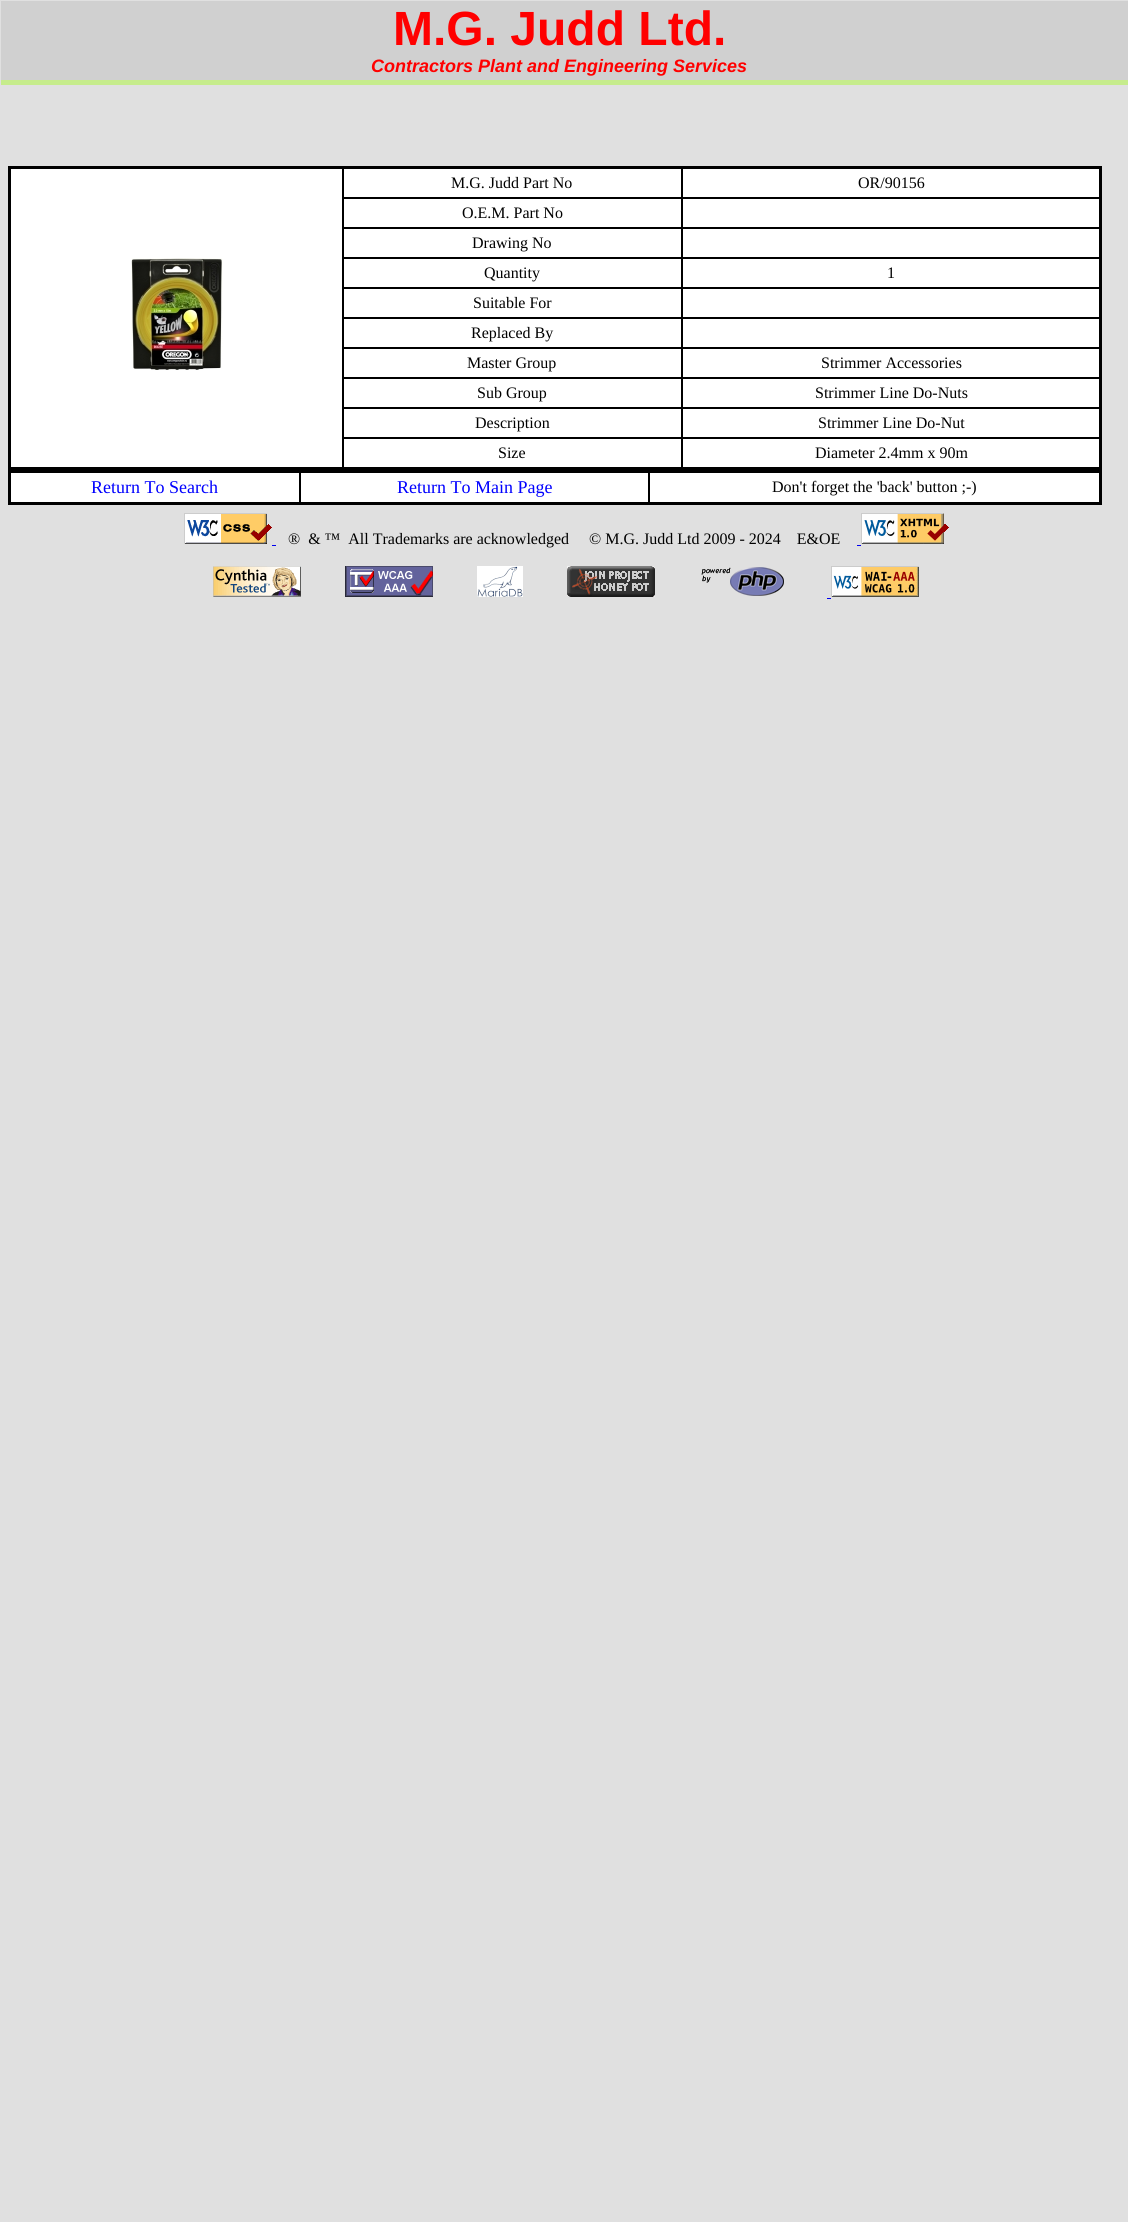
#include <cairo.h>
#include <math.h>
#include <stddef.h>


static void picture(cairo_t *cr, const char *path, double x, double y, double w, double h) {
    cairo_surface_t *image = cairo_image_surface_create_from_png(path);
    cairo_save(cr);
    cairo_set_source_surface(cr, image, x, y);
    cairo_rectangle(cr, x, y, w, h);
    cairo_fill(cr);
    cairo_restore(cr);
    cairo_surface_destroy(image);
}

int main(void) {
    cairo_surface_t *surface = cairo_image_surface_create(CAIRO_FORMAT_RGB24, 1128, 2222);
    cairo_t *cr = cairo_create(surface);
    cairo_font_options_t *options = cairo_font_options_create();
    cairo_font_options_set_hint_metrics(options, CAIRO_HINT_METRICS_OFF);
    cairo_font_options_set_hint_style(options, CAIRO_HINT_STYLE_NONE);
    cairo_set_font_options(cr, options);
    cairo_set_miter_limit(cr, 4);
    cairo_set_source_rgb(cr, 0.878, 0.878, 0.878);
    cairo_paint(cr);
    cairo_set_source_rgb(cr, 0.816, 0.816, 0.816);
    cairo_rectangle(cr, 1, 1, 1127, 79);
    cairo_fill(cr);
    cairo_set_source_rgb(cr, 0.776, 0.925, 0.549);
    cairo_rectangle(cr, 1, 80, 1127, 5);
    cairo_fill(cr);
    cairo_select_font_face(cr, "Liberation Sans", CAIRO_FONT_SLANT_NORMAL, CAIRO_FONT_WEIGHT_BOLD);
    cairo_set_font_size(cr, 48);
    cairo_set_source_rgb(cr, 1, 0, 0);
    cairo_move_to(cr, 393, 45);
    cairo_show_text(cr, "M.G. Judd Ltd.");
    cairo_select_font_face(cr, "Liberation Sans", CAIRO_FONT_SLANT_ITALIC, CAIRO_FONT_WEIGHT_BOLD);
    cairo_set_font_size(cr, 18);
    cairo_move_to(cr, 371, 72);
    cairo_show_text(cr, "Contractors Plant and Engineering Services");
    cairo_set_source_rgb(cr, 1, 1, 1);
    cairo_rectangle(cr, 11, 169, 1088, 298);
    cairo_fill(cr);
    cairo_rectangle(cr, 9, 167, 1092, 302);
    cairo_set_source_rgb(cr, 0, 0, 0);
    cairo_stroke(cr);
    cairo_rectangle(cr, 10.5, 168.5, 332, 299);
    cairo_set_line_width(cr, 1);
    cairo_stroke(cr);
    picture(cr, "img1.png", 131, 258, 92, 112);
    cairo_rectangle(cr, 343.5, 168.5, 338, 29);
    cairo_stroke(cr);
    cairo_select_font_face(cr, "Liberation Serif", CAIRO_FONT_SLANT_NORMAL, CAIRO_FONT_WEIGHT_NORMAL);
    cairo_set_font_size(cr, 16);
    cairo_move_to(cr, 451, 188);
    cairo_show_text(cr, "M.G. Judd Part No");
    cairo_rectangle(cr, 682.5, 168.5, 417, 29);
    cairo_stroke(cr);
    cairo_move_to(cr, 858, 188);
    cairo_show_text(cr, "OR/90156");
    cairo_rectangle(cr, 343.5, 198.5, 338, 29);
    cairo_stroke(cr);
    cairo_move_to(cr, 462, 218);
    cairo_show_text(cr, "O.E.M. Part No");
    cairo_rectangle(cr, 682.5, 198.5, 417, 29);
    cairo_stroke(cr);
    cairo_rectangle(cr, 343.5, 228.5, 338, 29);
    cairo_stroke(cr);
    cairo_move_to(cr, 472, 248);
    cairo_show_text(cr, "Drawing No");
    cairo_rectangle(cr, 682.5, 228.5, 417, 29);
    cairo_stroke(cr);
    cairo_rectangle(cr, 343.5, 258.5, 338, 29);
    cairo_stroke(cr);
    cairo_move_to(cr, 484, 278);
    cairo_show_text(cr, "Quantity");
    cairo_rectangle(cr, 682.5, 258.5, 417, 29);
    cairo_stroke(cr);
    cairo_move_to(cr, 887, 278);
    cairo_show_text(cr, "1");
    cairo_rectangle(cr, 343.5, 288.5, 338, 29);
    cairo_stroke(cr);
    cairo_move_to(cr, 473, 308);
    cairo_show_text(cr, "Suitable For");
    cairo_rectangle(cr, 682.5, 288.5, 417, 29);
    cairo_stroke(cr);
    cairo_rectangle(cr, 343.5, 318.5, 338, 29);
    cairo_stroke(cr);
    cairo_move_to(cr, 471, 338);
    cairo_show_text(cr, "Replaced By");
    cairo_rectangle(cr, 682.5, 318.5, 417, 29);
    cairo_stroke(cr);
    cairo_rectangle(cr, 343.5, 348.5, 338, 29);
    cairo_stroke(cr);
    cairo_move_to(cr, 467, 368);
    cairo_show_text(cr, "Master Group");
    cairo_rectangle(cr, 682.5, 348.5, 417, 29);
    cairo_stroke(cr);
    cairo_move_to(cr, 821, 368);
    cairo_show_text(cr, "Strimmer Accessories");
    cairo_rectangle(cr, 343.5, 378.5, 338, 29);
    cairo_stroke(cr);
    cairo_move_to(cr, 477, 398);
    cairo_show_text(cr, "Sub Group");
    cairo_rectangle(cr, 682.5, 378.5, 417, 29);
    cairo_stroke(cr);
    cairo_move_to(cr, 815, 398);
    cairo_show_text(cr, "Strimmer Line Do-Nuts");
    cairo_rectangle(cr, 343.5, 408.5, 338, 29);
    cairo_stroke(cr);
    cairo_move_to(cr, 475, 428);
    cairo_show_text(cr, "Description");
    cairo_rectangle(cr, 682.5, 408.5, 417, 29);
    cairo_stroke(cr);
    cairo_move_to(cr, 818, 428);
    cairo_show_text(cr, "Strimmer Line Do-Nut");
    cairo_rectangle(cr, 343.5, 438.5, 338, 29);
    cairo_stroke(cr);
    cairo_move_to(cr, 498, 458);
    cairo_show_text(cr, "Size");
    cairo_rectangle(cr, 682.5, 438.5, 417, 29);
    cairo_stroke(cr);
    cairo_move_to(cr, 815, 458);
    cairo_show_text(cr, "Diameter 2.4mm x 90m");
    cairo_set_source_rgb(cr, 1, 1, 1);
    cairo_rectangle(cr, 11, 473, 1088, 29);
    cairo_fill(cr);
    cairo_rectangle(cr, 9, 471, 1092, 33);
    cairo_set_source_rgb(cr, 0, 0, 0);
    cairo_set_line_width(cr, 2);
    cairo_stroke(cr);
    cairo_rectangle(cr, 10.5, 472.5, 289, 30);
    cairo_set_line_width(cr, 1);
    cairo_stroke(cr);
    cairo_set_font_size(cr, 18);
    cairo_set_source_rgb(cr, 0, 0, 1);
    cairo_move_to(cr, 91, 493);
    cairo_show_text(cr, "Return To Search");
    cairo_rectangle(cr, 300.5, 472.5, 348, 30);
    cairo_set_source_rgb(cr, 0, 0, 0);
    cairo_stroke(cr);
    cairo_set_source_rgb(cr, 0, 0, 1);
    cairo_move_to(cr, 397, 493);
    cairo_show_text(cr, "Return To Main Page");
    cairo_rectangle(cr, 649.5, 472.5, 450, 30);
    cairo_set_source_rgb(cr, 0, 0, 0);
    cairo_stroke(cr);
    cairo_set_font_size(cr, 16);
    cairo_move_to(cr, 772, 492);
    cairo_show_text(cr, "Don't forget the 'back' button ;-)");
    picture(cr, "img2.png", 184, 513, 88, 31);
    cairo_set_source_rgb(cr, 0, 0, 0.933);
    cairo_rectangle(cr, 272, 545, 4, 1);
    cairo_fill(cr);
    cairo_set_source_rgb(cr, 0, 0, 0);
    cairo_move_to(cr, 288, 544);
    cairo_show_text(cr, "®  & ™  All Trademarks are acknowledged     © M.G. Judd Ltd 2009 - 2024    E&OE");
    cairo_set_source_rgb(cr, 0, 0, 0.933);
    cairo_rectangle(cr, 857, 545, 4, 1);
    cairo_fill(cr);
    picture(cr, "img3.png", 861, 513, 88, 31);
    picture(cr, "img4.png", 213, 566, 88, 31);
    picture(cr, "img5.png", 345, 566, 88, 31);
    picture(cr, "img6.png", 477, 566, 46, 31);
    picture(cr, "img7.png", 567, 566, 88, 31);
    picture(cr, "img8.png", 701, 567, 83, 29);
    picture(cr, "img9.png", 831, 566, 88, 31);
    cairo_rectangle(cr, 827, 598, 4, 1);
    cairo_fill(cr);
    cairo_surface_write_to_png(surface, "page.png");
    cairo_font_options_destroy(options);
    cairo_destroy(cr);
    cairo_surface_destroy(surface);
    return 0;
}
